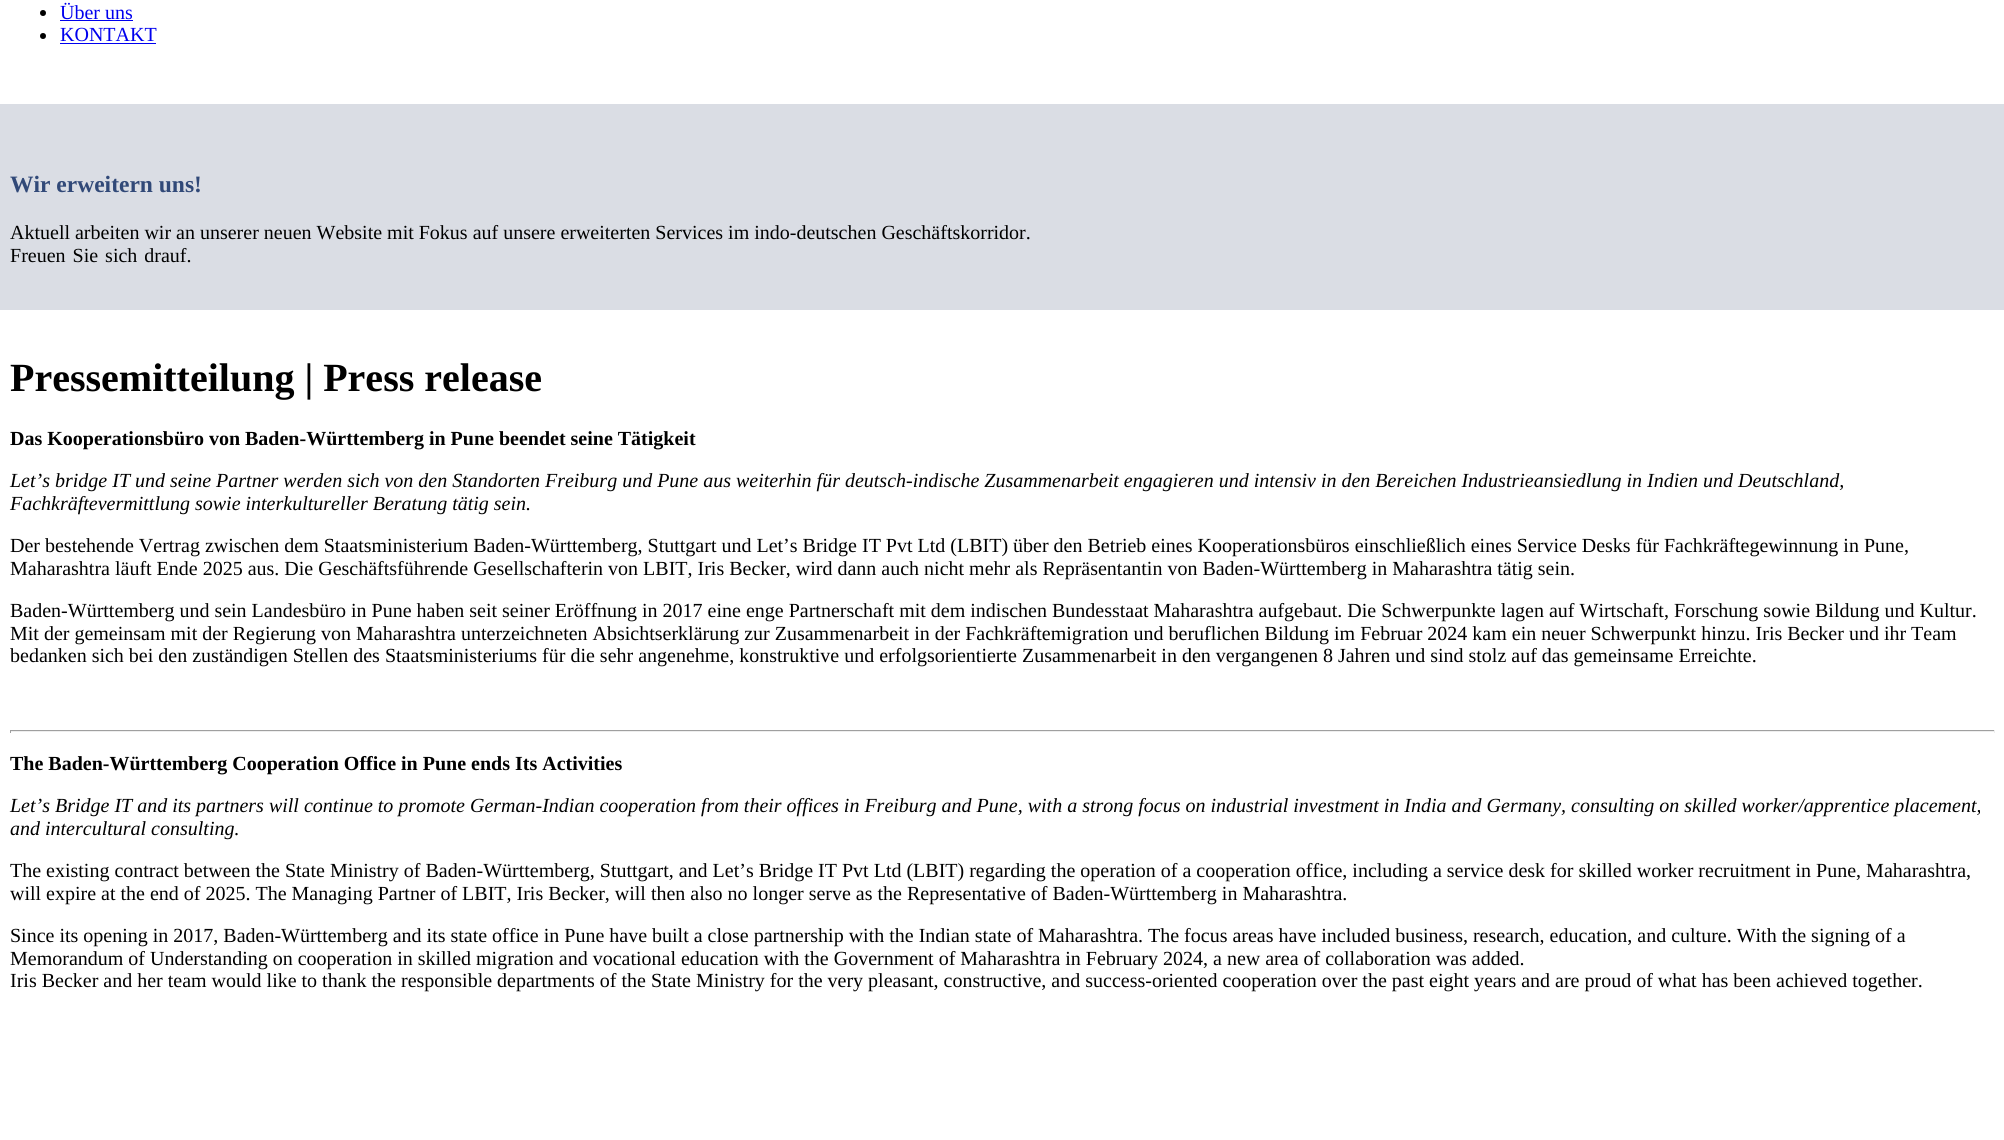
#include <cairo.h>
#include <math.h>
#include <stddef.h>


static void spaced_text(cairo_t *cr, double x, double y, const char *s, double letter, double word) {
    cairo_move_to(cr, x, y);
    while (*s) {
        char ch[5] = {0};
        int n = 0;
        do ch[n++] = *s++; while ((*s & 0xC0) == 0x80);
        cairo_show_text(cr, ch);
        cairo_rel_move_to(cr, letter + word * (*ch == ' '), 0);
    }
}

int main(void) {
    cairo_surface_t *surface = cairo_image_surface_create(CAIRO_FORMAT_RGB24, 2004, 1140);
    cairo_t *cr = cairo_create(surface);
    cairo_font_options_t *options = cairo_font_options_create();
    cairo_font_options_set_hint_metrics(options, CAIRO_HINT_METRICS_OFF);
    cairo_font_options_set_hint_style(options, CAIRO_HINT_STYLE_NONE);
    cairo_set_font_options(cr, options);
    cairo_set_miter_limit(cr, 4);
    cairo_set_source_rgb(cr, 1, 1, 1);
    cairo_paint(cr);
    cairo_set_source_rgb(cr, 0, 0, 0);
    cairo_arc(cr, 43, 13, 3, 0, 2 * M_PI);
    cairo_fill(cr);
    cairo_select_font_face(cr, "Liberation Serif", CAIRO_FONT_SLANT_NORMAL, CAIRO_FONT_WEIGHT_NORMAL);
    cairo_set_font_size(cr, 20);
    cairo_set_source_rgb(cr, 0, 0, 0.933);
    cairo_move_to(cr, 60, 19);
    cairo_show_text(cr, "Über uns");
    cairo_rectangle(cr, 60, 20, 73, 1);
    cairo_fill(cr);
    cairo_set_source_rgb(cr, 0, 0, 0);
    cairo_arc(cr, 43, 36, 3, 0, 2 * M_PI);
    cairo_fill(cr);
    cairo_set_source_rgb(cr, 0, 0, 0.933);
    cairo_move_to(cr, 60, 41);
    cairo_show_text(cr, "KONTAKT");
    cairo_rectangle(cr, 60, 43, 96, 1);
    cairo_fill(cr);
    cairo_set_source_rgb(cr, 0.855, 0.867, 0.894);
    cairo_rectangle(cr, 0, 104, 2004, 206);
    cairo_fill(cr);
    cairo_select_font_face(cr, "Liberation Serif", CAIRO_FONT_SLANT_NORMAL, CAIRO_FONT_WEIGHT_BOLD);
    cairo_set_font_size(cr, 23.5);
    cairo_set_source_rgb(cr, 0.192, 0.286, 0.471);
    cairo_move_to(cr, 10, 192);
    cairo_show_text(cr, "Wir erweitern uns!");
    cairo_select_font_face(cr, "Liberation Serif", CAIRO_FONT_SLANT_NORMAL, CAIRO_FONT_WEIGHT_NORMAL);
    cairo_set_font_size(cr, 20);
    cairo_set_source_rgb(cr, 0, 0, 0);
    cairo_move_to(cr, 10, 239);
    cairo_show_text(cr, "Aktuell arbeiten wir an unserer neuen Website mit Fokus auf unsere erweiterten Services im indo-deutschen Geschäftskorridor.");
    spaced_text(cr, 10, 262, "Freuen Sie sich drauf.", 0, 2);
    cairo_select_font_face(cr, "Liberation Serif", CAIRO_FONT_SLANT_NORMAL, CAIRO_FONT_WEIGHT_BOLD);
    cairo_set_font_size(cr, 40);
    cairo_move_to(cr, 10, 391);
    cairo_show_text(cr, "Pressemitteilung | Press release");
    cairo_set_font_size(cr, 20);
    cairo_move_to(cr, 10, 445);
    cairo_show_text(cr, "Das Kooperationsbüro von Baden-Württemberg in Pune beendet seine Tätigkeit");
    cairo_select_font_face(cr, "Liberation Serif", CAIRO_FONT_SLANT_ITALIC, CAIRO_FONT_WEIGHT_NORMAL);
    cairo_move_to(cr, 10, 487);
    cairo_show_text(cr, "Let’s bridge IT und seine Partner werden sich von den Standorten Freiburg und Pune aus weiterhin für deutsch-indische Zusammenarbeit engagieren und intensiv in den Bereichen Industrieansiedlung in Indien und Deutschland,");
    cairo_move_to(cr, 10, 510);
    cairo_show_text(cr, "Fachkräftevermittlung sowie interkultureller Beratung tätig sein.");
    cairo_select_font_face(cr, "Liberation Serif", CAIRO_FONT_SLANT_NORMAL, CAIRO_FONT_WEIGHT_NORMAL);
    cairo_move_to(cr, 10, 552);
    cairo_show_text(cr, "Der bestehende Vertrag zwischen dem Staatsministerium Baden-Württemberg, Stuttgart und Let’s Bridge IT Pvt Ltd (LBIT) über den Betrieb eines Kooperationsbüros einschließlich eines Service Desks für Fachkräftegewinnung in Pune,");
    cairo_move_to(cr, 10, 575);
    cairo_show_text(cr, "Maharashtra läuft Ende 2025 aus. Die Geschäftsführende Gesellschafterin von LBIT, Iris Becker, wird dann auch nicht mehr als Repräsentantin von Baden-Württemberg in Maharashtra tätig sein.");
    cairo_move_to(cr, 10, 617);
    cairo_show_text(cr, "Baden-Württemberg und sein Landesbüro in Pune haben seit seiner Eröffnung in 2017 eine enge Partnerschaft mit dem indischen Bundesstaat Maharashtra aufgebaut. Die Schwerpunkte lagen auf Wirtschaft, Forschung sowie Bildung und Kultur.");
    cairo_move_to(cr, 10, 640);
    cairo_show_text(cr, "Mit der gemeinsam mit der Regierung von Maharashtra unterzeichneten Absichtserklärung zur Zusammenarbeit in der Fachkräftemigration und beruflichen Bildung im Februar 2024 kam ein neuer Schwerpunkt hinzu. Iris Becker und ihr Team");
    cairo_move_to(cr, 10, 662);
    cairo_show_text(cr, "bedanken sich bei den zuständigen Stellen des Staatsministeriums für die sehr angenehme, konstruktive und erfolgsorientierte Zusammenarbeit in den vergangenen 8 Jahren und sind stolz auf das gemeinsame Erreichte.");
    cairo_set_source_rgb(cr, 0.624, 0.624, 0.624);
    cairo_rectangle(cr, 10, 730, 1985, 1);
    cairo_fill(cr);
    cairo_set_source_rgb(cr, 0.933, 0.933, 0.933);
    cairo_rectangle(cr, 1994, 730, 1, 3);
    cairo_fill(cr);
    cairo_rectangle(cr, 10, 731, 1985, 1);
    cairo_fill(cr);
    cairo_set_source_rgb(cr, 0.624, 0.624, 0.624);
    cairo_rectangle(cr, 10, 730, 1, 3);
    cairo_fill(cr);
    cairo_select_font_face(cr, "Liberation Serif", CAIRO_FONT_SLANT_NORMAL, CAIRO_FONT_WEIGHT_BOLD);
    cairo_set_source_rgb(cr, 0, 0, 0);
    cairo_move_to(cr, 10, 770);
    cairo_show_text(cr, "The Baden-Württemberg Cooperation Office in Pune ends Its Activities");
    cairo_select_font_face(cr, "Liberation Serif", CAIRO_FONT_SLANT_ITALIC, CAIRO_FONT_WEIGHT_NORMAL);
    cairo_move_to(cr, 10, 812);
    cairo_show_text(cr, "Let’s Bridge IT and its partners will continue to promote German-Indian cooperation from their offices in Freiburg and Pune, with a strong focus on industrial investment in India and Germany, consulting on skilled worker/apprentice placement,");
    cairo_move_to(cr, 10, 835);
    cairo_show_text(cr, "and intercultural consulting.");
    cairo_select_font_face(cr, "Liberation Serif", CAIRO_FONT_SLANT_NORMAL, CAIRO_FONT_WEIGHT_NORMAL);
    cairo_move_to(cr, 10, 877);
    cairo_show_text(cr, "The existing contract between the State Ministry of Baden-Württemberg, Stuttgart, and Let’s Bridge IT Pvt Ltd (LBIT) regarding the operation of a cooperation office, including a service desk for skilled worker recruitment in Pune, Maharashtra,");
    cairo_move_to(cr, 10, 900);
    cairo_show_text(cr, "will expire at the end of 2025. The Managing Partner of LBIT, Iris Becker, will then also no longer serve as the Representative of Baden-Württemberg in Maharashtra.");
    cairo_move_to(cr, 10, 942);
    cairo_show_text(cr, "Since its opening in 2017, Baden-Württemberg and its state office in Pune have built a close partnership with the Indian state of Maharashtra. The focus areas have included business, research, education, and culture. With the signing of a");
    cairo_move_to(cr, 10, 965);
    cairo_show_text(cr, "Memorandum of Understanding on cooperation in skilled migration and vocational education with the Government of Maharashtra in February 2024, a new area of collaboration was added.");
    cairo_move_to(cr, 10, 987);
    cairo_show_text(cr, "Iris Becker and her team would like to thank the responsible departments of the State Ministry for the very pleasant, constructive, and success-oriented cooperation over the past eight years and are proud of what has been achieved together.");
    cairo_surface_write_to_png(surface, "page.png");
    cairo_font_options_destroy(options);
    cairo_destroy(cr);
    cairo_surface_destroy(surface);
    return 0;
}
